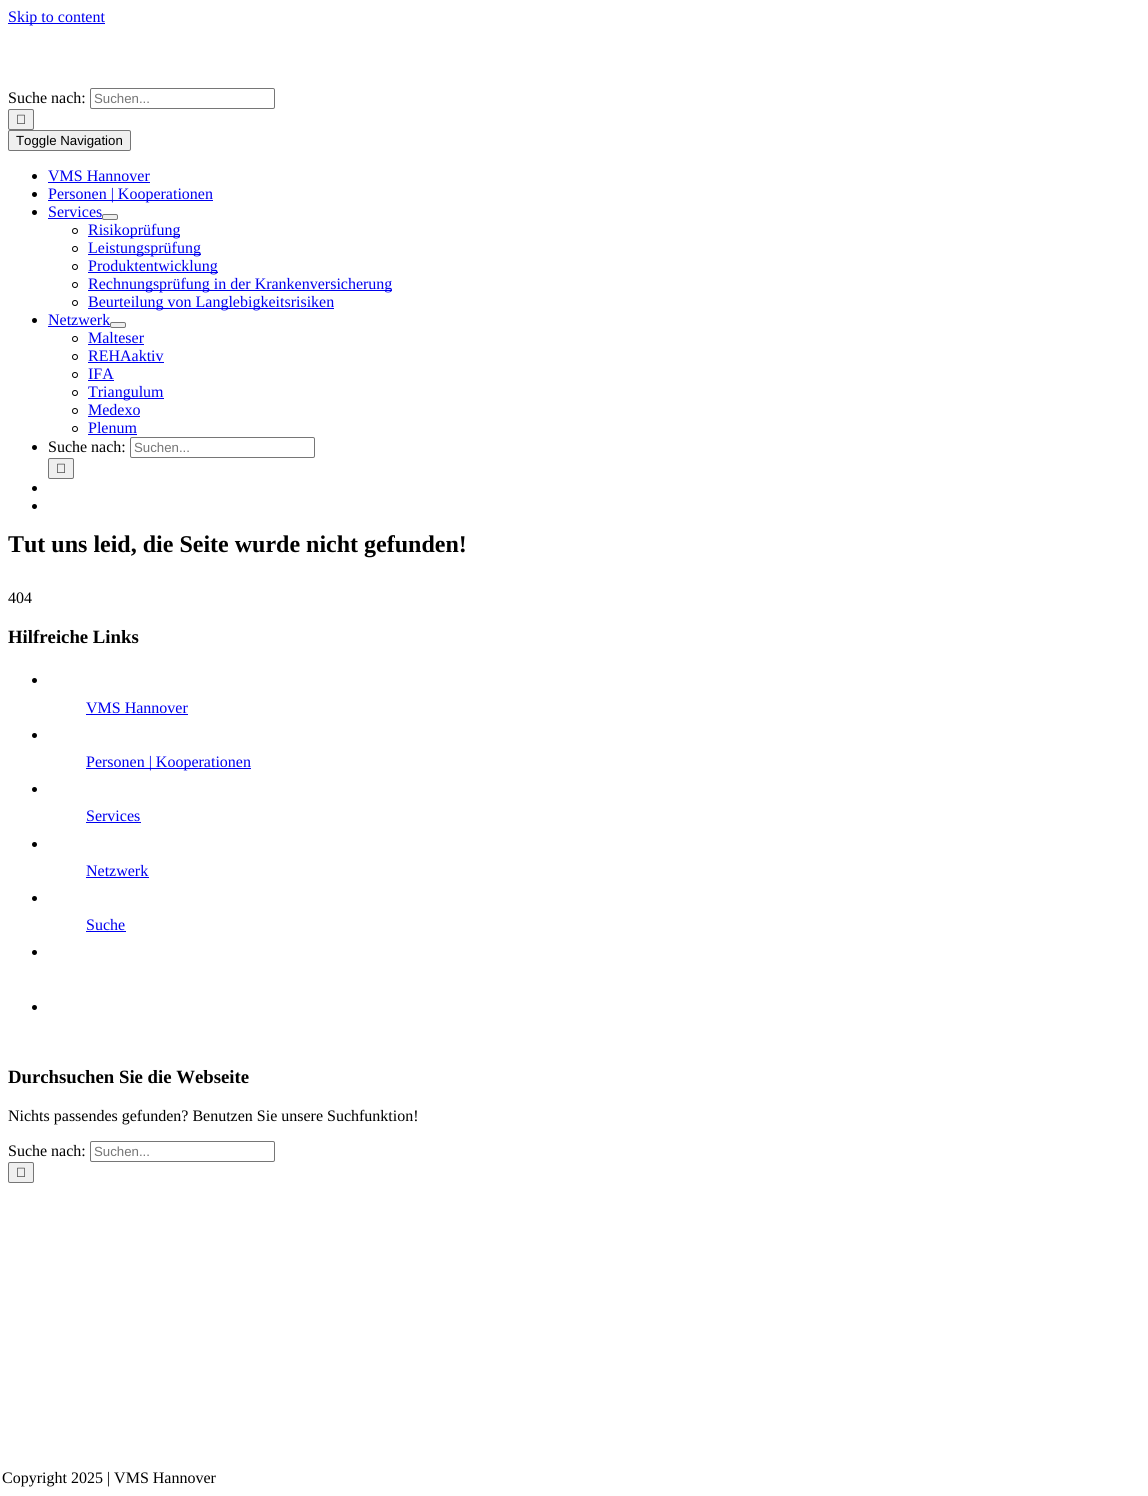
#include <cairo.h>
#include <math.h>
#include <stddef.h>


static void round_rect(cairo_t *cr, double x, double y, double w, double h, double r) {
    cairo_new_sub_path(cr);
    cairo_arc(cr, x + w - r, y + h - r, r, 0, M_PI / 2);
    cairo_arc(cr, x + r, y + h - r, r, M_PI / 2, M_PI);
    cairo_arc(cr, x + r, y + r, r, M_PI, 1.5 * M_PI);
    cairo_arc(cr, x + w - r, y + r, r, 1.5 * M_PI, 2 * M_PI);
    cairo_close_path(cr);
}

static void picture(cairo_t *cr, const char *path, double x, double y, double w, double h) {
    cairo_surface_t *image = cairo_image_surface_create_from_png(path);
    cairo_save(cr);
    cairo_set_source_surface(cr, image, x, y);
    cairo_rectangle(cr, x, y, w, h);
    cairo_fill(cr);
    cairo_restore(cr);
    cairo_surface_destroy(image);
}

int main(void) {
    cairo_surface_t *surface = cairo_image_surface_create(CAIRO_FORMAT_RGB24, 1148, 1496);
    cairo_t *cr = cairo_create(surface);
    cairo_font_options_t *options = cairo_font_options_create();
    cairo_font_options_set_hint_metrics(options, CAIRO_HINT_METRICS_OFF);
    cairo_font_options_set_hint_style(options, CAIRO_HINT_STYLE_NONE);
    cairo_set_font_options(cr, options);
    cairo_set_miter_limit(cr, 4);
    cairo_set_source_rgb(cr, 1, 1, 1);
    cairo_paint(cr);
    cairo_set_source_rgb(cr, 0, 0, 0.933);
    cairo_rectangle(cr, 8, 23, 97, 1);
    cairo_fill(cr);
    cairo_select_font_face(cr, "Liberation Serif", CAIRO_FONT_SLANT_NORMAL, CAIRO_FONT_WEIGHT_NORMAL);
    cairo_set_font_size(cr, 16);
    cairo_move_to(cr, 8, 22);
    cairo_show_text(cr, "Skip to content");
    cairo_set_source_rgb(cr, 0, 0, 0);
    cairo_move_to(cr, 8, 103);
    cairo_show_text(cr, "Suche nach:");
    round_rect(cr, 90.5, 88.5, 184, 20, 1.5);
    cairo_set_source_rgb(cr, 0.463, 0.463, 0.463);
    cairo_set_line_width(cr, 1);
    cairo_stroke(cr);
    cairo_select_font_face(cr, "Liberation Sans", CAIRO_FONT_SLANT_NORMAL, CAIRO_FONT_WEIGHT_NORMAL);
    cairo_set_font_size(cr, 13.25);
    cairo_set_source_rgb(cr, 0.459, 0.459, 0.459);
    cairo_move_to(cr, 94, 103);
    cairo_show_text(cr, "Suchen...");
    cairo_set_source_rgb(cr, 0.937, 0.937, 0.937);
    round_rect(cr, 8.5, 109.5, 25, 20, 1.5);
    cairo_fill_preserve(cr);
    cairo_set_source_rgb(cr, 0.463, 0.463, 0.463);
    cairo_stroke(cr);
    picture(cr, "img1.png", 17, 114, 8, 10);
    cairo_set_source_rgb(cr, 0.937, 0.937, 0.937);
    round_rect(cr, 8.5, 130.5, 122, 20, 1.5);
    cairo_fill_preserve(cr);
    cairo_set_source_rgb(cr, 0.463, 0.463, 0.463);
    cairo_stroke(cr);
    cairo_set_source_rgb(cr, 0, 0, 0);
    cairo_move_to(cr, 16, 145);
    cairo_show_text(cr, "Toggle Navigation");
    cairo_new_path(cr);
    cairo_arc(cr, 34.5, 176.5, 2.5, 0, 2 * M_PI);
    cairo_fill(cr);
    cairo_select_font_face(cr, "Liberation Serif", CAIRO_FONT_SLANT_NORMAL, CAIRO_FONT_WEIGHT_NORMAL);
    cairo_set_font_size(cr, 16);
    cairo_set_source_rgb(cr, 0, 0, 0.933);
    cairo_move_to(cr, 48, 181);
    cairo_show_text(cr, "VMS Hannover");
    cairo_rectangle(cr, 48, 182, 102, 1);
    cairo_fill(cr);
    cairo_set_source_rgb(cr, 0, 0, 0);
    cairo_arc(cr, 34.5, 194.5, 2.5, 0, 2 * M_PI);
    cairo_fill(cr);
    cairo_set_source_rgb(cr, 0, 0, 0.933);
    cairo_rectangle(cr, 48, 200, 165, 1);
    cairo_fill(cr);
    cairo_move_to(cr, 48, 199);
    cairo_show_text(cr, "Personen | Kooperationen");
    cairo_set_source_rgb(cr, 0, 0, 0);
    cairo_new_path(cr);
    cairo_arc(cr, 34.5, 212.5, 2.5, 0, 2 * M_PI);
    cairo_fill(cr);
    cairo_set_source_rgb(cr, 0, 0, 0.933);
    cairo_move_to(cr, 48, 217);
    cairo_show_text(cr, "Services");
    cairo_rectangle(cr, 48, 218, 54, 1);
    cairo_fill(cr);
    cairo_set_source_rgb(cr, 0.937, 0.937, 0.937);
    round_rect(cr, 102.5, 214.5, 15, 5, 1.5);
    cairo_fill_preserve(cr);
    cairo_set_source_rgb(cr, 0.463, 0.463, 0.463);
    cairo_stroke(cr);
    cairo_arc(cr, 75, 231, 2.5, 0, 2 * M_PI);
    cairo_set_source_rgb(cr, 0, 0, 0);
    cairo_stroke(cr);
    cairo_set_source_rgb(cr, 0, 0, 0.933);
    cairo_rectangle(cr, 88, 236, 92, 1);
    cairo_fill(cr);
    cairo_move_to(cr, 88, 235);
    cairo_show_text(cr, "Risikoprüfung");
    cairo_new_path(cr);
    cairo_arc(cr, 75, 249, 2.5, 0, 2 * M_PI);
    cairo_set_source_rgb(cr, 0, 0, 0);
    cairo_stroke(cr);
    cairo_set_source_rgb(cr, 0, 0, 0.933);
    cairo_rectangle(cr, 88, 254, 113, 1);
    cairo_fill(cr);
    cairo_move_to(cr, 88, 253);
    cairo_show_text(cr, "Leistungsprüfung");
    cairo_new_path(cr);
    cairo_arc(cr, 75, 267, 2.5, 0, 2 * M_PI);
    cairo_set_source_rgb(cr, 0, 0, 0);
    cairo_stroke(cr);
    cairo_set_source_rgb(cr, 0, 0, 0.933);
    cairo_rectangle(cr, 88, 272, 130, 1);
    cairo_fill(cr);
    cairo_move_to(cr, 88, 271);
    cairo_show_text(cr, "Produktentwicklung");
    cairo_new_path(cr);
    cairo_arc(cr, 75, 285, 2.5, 0, 2 * M_PI);
    cairo_set_source_rgb(cr, 0, 0, 0);
    cairo_stroke(cr);
    cairo_set_source_rgb(cr, 0, 0, 0.933);
    cairo_rectangle(cr, 88, 290, 304, 1);
    cairo_fill(cr);
    cairo_move_to(cr, 88, 289);
    cairo_show_text(cr, "Rechnungsprüfung in der Krankenversicherung");
    cairo_new_path(cr);
    cairo_arc(cr, 75, 303, 2.5, 0, 2 * M_PI);
    cairo_set_source_rgb(cr, 0, 0, 0);
    cairo_stroke(cr);
    cairo_set_source_rgb(cr, 0, 0, 0.933);
    cairo_rectangle(cr, 88, 308, 246, 1);
    cairo_fill(cr);
    cairo_move_to(cr, 88, 307);
    cairo_show_text(cr, "Beurteilung von Langlebigkeitsrisiken");
    cairo_set_source_rgb(cr, 0, 0, 0);
    cairo_new_path(cr);
    cairo_arc(cr, 34.5, 320.5, 2.5, 0, 2 * M_PI);
    cairo_fill(cr);
    cairo_set_source_rgb(cr, 0, 0, 0.933);
    cairo_move_to(cr, 48, 325);
    cairo_show_text(cr, "Netzwerk");
    cairo_rectangle(cr, 48, 326, 62, 1);
    cairo_fill(cr);
    cairo_set_source_rgb(cr, 0.937, 0.937, 0.937);
    round_rect(cr, 110.5, 322.5, 15, 5, 1.5);
    cairo_fill_preserve(cr);
    cairo_set_source_rgb(cr, 0.463, 0.463, 0.463);
    cairo_stroke(cr);
    cairo_arc(cr, 75, 339, 2.5, 0, 2 * M_PI);
    cairo_set_source_rgb(cr, 0, 0, 0);
    cairo_stroke(cr);
    cairo_set_source_rgb(cr, 0, 0, 0.933);
    cairo_move_to(cr, 88, 343);
    cairo_show_text(cr, "Malteser");
    cairo_rectangle(cr, 88, 344, 56, 1);
    cairo_fill(cr);
    cairo_arc(cr, 75, 357, 2.5, 0, 2 * M_PI);
    cairo_set_source_rgb(cr, 0, 0, 0);
    cairo_stroke(cr);
    cairo_set_source_rgb(cr, 0, 0, 0.933);
    cairo_move_to(cr, 88, 361);
    cairo_show_text(cr, "REHAaktiv");
    cairo_rectangle(cr, 88, 362, 76, 1);
    cairo_fill(cr);
    cairo_arc(cr, 75, 375, 2.5, 0, 2 * M_PI);
    cairo_set_source_rgb(cr, 0, 0, 0);
    cairo_stroke(cr);
    cairo_set_source_rgb(cr, 0, 0, 0.933);
    cairo_move_to(cr, 88, 379);
    cairo_show_text(cr, "IFA");
    cairo_rectangle(cr, 88, 380, 26, 1);
    cairo_fill(cr);
    cairo_arc(cr, 75, 393, 2.5, 0, 2 * M_PI);
    cairo_set_source_rgb(cr, 0, 0, 0);
    cairo_stroke(cr);
    cairo_set_source_rgb(cr, 0, 0, 0.933);
    cairo_rectangle(cr, 88, 398, 76, 1);
    cairo_fill(cr);
    cairo_move_to(cr, 88, 397);
    cairo_show_text(cr, "Triangulum");
    cairo_new_path(cr);
    cairo_arc(cr, 75, 411, 2.5, 0, 2 * M_PI);
    cairo_set_source_rgb(cr, 0, 0, 0);
    cairo_stroke(cr);
    cairo_set_source_rgb(cr, 0, 0, 0.933);
    cairo_move_to(cr, 88, 415);
    cairo_show_text(cr, "Medexo");
    cairo_rectangle(cr, 88, 416, 52, 1);
    cairo_fill(cr);
    cairo_arc(cr, 75, 429, 2.5, 0, 2 * M_PI);
    cairo_set_source_rgb(cr, 0, 0, 0);
    cairo_stroke(cr);
    cairo_set_source_rgb(cr, 0, 0, 0.933);
    cairo_move_to(cr, 88, 433);
    cairo_show_text(cr, "Plenum");
    cairo_rectangle(cr, 88, 434, 49, 1);
    cairo_fill(cr);
    cairo_set_source_rgb(cr, 0, 0, 0);
    cairo_arc(cr, 34.5, 447.5, 2.5, 0, 2 * M_PI);
    cairo_fill(cr);
    cairo_move_to(cr, 48, 452);
    cairo_show_text(cr, "Suche nach:");
    round_rect(cr, 130.5, 437.5, 184, 20, 1.5);
    cairo_set_source_rgb(cr, 0.463, 0.463, 0.463);
    cairo_stroke(cr);
    cairo_select_font_face(cr, "Liberation Sans", CAIRO_FONT_SLANT_NORMAL, CAIRO_FONT_WEIGHT_NORMAL);
    cairo_set_font_size(cr, 13.25);
    cairo_set_source_rgb(cr, 0.459, 0.459, 0.459);
    cairo_move_to(cr, 134, 452);
    cairo_show_text(cr, "Suchen...");
    cairo_set_source_rgb(cr, 0.937, 0.937, 0.937);
    round_rect(cr, 48.5, 458.5, 25, 20, 1.5);
    cairo_fill_preserve(cr);
    cairo_set_source_rgb(cr, 0.463, 0.463, 0.463);
    cairo_stroke(cr);
    picture(cr, "img1.png", 57, 463, 8, 10);
    cairo_set_source_rgb(cr, 0, 0, 0);
    cairo_arc(cr, 34.5, 488.5, 2.5, 0, 2 * M_PI);
    cairo_fill(cr);
    cairo_arc(cr, 34.5, 506.5, 2.5, 0, 2 * M_PI);
    cairo_fill(cr);
    cairo_select_font_face(cr, "Liberation Serif", CAIRO_FONT_SLANT_NORMAL, CAIRO_FONT_WEIGHT_BOLD);
    cairo_set_font_size(cr, 24);
    cairo_move_to(cr, 8, 552);
    cairo_show_text(cr, "Tut uns leid, die Seite wurde nicht gefunden!");
    cairo_select_font_face(cr, "Liberation Serif", CAIRO_FONT_SLANT_NORMAL, CAIRO_FONT_WEIGHT_NORMAL);
    cairo_set_font_size(cr, 16);
    cairo_move_to(cr, 8, 603);
    cairo_show_text(cr, "404");
    cairo_select_font_face(cr, "Liberation Serif", CAIRO_FONT_SLANT_NORMAL, CAIRO_FONT_WEIGHT_BOLD);
    cairo_set_font_size(cr, 18.75);
    cairo_move_to(cr, 8, 643);
    cairo_show_text(cr, "Hilfreiche Links");
    cairo_new_path(cr);
    cairo_arc(cr, 34.5, 680.5, 2.5, 0, 2 * M_PI);
    cairo_fill(cr);
    cairo_select_font_face(cr, "Liberation Serif", CAIRO_FONT_SLANT_NORMAL, CAIRO_FONT_WEIGHT_NORMAL);
    cairo_set_font_size(cr, 16);
    cairo_set_source_rgb(cr, 0, 0, 0.933);
    cairo_move_to(cr, 86, 713);
    cairo_show_text(cr, "VMS Hannover");
    cairo_rectangle(cr, 86, 714, 102, 1);
    cairo_fill(cr);
    cairo_set_source_rgb(cr, 0, 0, 0);
    cairo_arc(cr, 34.5, 735.5, 2.5, 0, 2 * M_PI);
    cairo_fill(cr);
    cairo_set_source_rgb(cr, 0, 0, 0.933);
    cairo_rectangle(cr, 86, 768, 165, 1);
    cairo_fill(cr);
    cairo_move_to(cr, 86, 767);
    cairo_show_text(cr, "Personen | Kooperationen");
    cairo_set_source_rgb(cr, 0, 0, 0);
    cairo_new_path(cr);
    cairo_arc(cr, 34.5, 789.5, 2.5, 0, 2 * M_PI);
    cairo_fill(cr);
    cairo_set_source_rgb(cr, 0, 0, 0.933);
    cairo_move_to(cr, 86, 821);
    cairo_show_text(cr, "Services");
    cairo_rectangle(cr, 86, 822, 55, 1);
    cairo_fill(cr);
    cairo_set_source_rgb(cr, 0, 0, 0);
    cairo_arc(cr, 34.5, 844.5, 2.5, 0, 2 * M_PI);
    cairo_fill(cr);
    cairo_set_source_rgb(cr, 0, 0, 0.933);
    cairo_move_to(cr, 86, 876);
    cairo_show_text(cr, "Netzwerk");
    cairo_rectangle(cr, 86, 877, 63, 1);
    cairo_fill(cr);
    cairo_set_source_rgb(cr, 0, 0, 0);
    cairo_arc(cr, 34.5, 898.5, 2.5, 0, 2 * M_PI);
    cairo_fill(cr);
    cairo_set_source_rgb(cr, 0, 0, 0.933);
    cairo_move_to(cr, 86, 930);
    cairo_show_text(cr, "Suche");
    cairo_rectangle(cr, 86, 931, 40, 1);
    cairo_fill(cr);
    cairo_set_source_rgb(cr, 0, 0, 0);
    cairo_arc(cr, 34.5, 952.5, 2.5, 0, 2 * M_PI);
    cairo_fill(cr);
    cairo_arc(cr, 34.5, 1007.5, 2.5, 0, 2 * M_PI);
    cairo_fill(cr);
    cairo_select_font_face(cr, "Liberation Serif", CAIRO_FONT_SLANT_NORMAL, CAIRO_FONT_WEIGHT_BOLD);
    cairo_set_font_size(cr, 18.75);
    cairo_move_to(cr, 8, 1083);
    cairo_show_text(cr, "Durchsuchen Sie die Webseite");
    cairo_select_font_face(cr, "Liberation Serif", CAIRO_FONT_SLANT_NORMAL, CAIRO_FONT_WEIGHT_NORMAL);
    cairo_set_font_size(cr, 16);
    cairo_move_to(cr, 8, 1121);
    cairo_show_text(cr, "Nichts passendes gefunden? Benutzen Sie unsere Suchfunktion!");
    cairo_move_to(cr, 8, 1156);
    cairo_show_text(cr, "Suche nach:");
    round_rect(cr, 90.5, 1141.5, 184, 20, 1.5);
    cairo_set_source_rgb(cr, 0.463, 0.463, 0.463);
    cairo_stroke(cr);
    cairo_select_font_face(cr, "Liberation Sans", CAIRO_FONT_SLANT_NORMAL, CAIRO_FONT_WEIGHT_NORMAL);
    cairo_set_font_size(cr, 13.25);
    cairo_set_source_rgb(cr, 0.459, 0.459, 0.459);
    cairo_move_to(cr, 94, 1156);
    cairo_show_text(cr, "Suchen...");
    cairo_set_source_rgb(cr, 0.937, 0.937, 0.937);
    round_rect(cr, 8.5, 1162.5, 25, 20, 1.5);
    cairo_fill_preserve(cr);
    cairo_set_source_rgb(cr, 0.463, 0.463, 0.463);
    cairo_stroke(cr);
    picture(cr, "img1.png", 17, 1167, 8, 10);
    cairo_select_font_face(cr, "Liberation Serif", CAIRO_FONT_SLANT_NORMAL, CAIRO_FONT_WEIGHT_NORMAL);
    cairo_set_font_size(cr, 16);
    cairo_set_source_rgb(cr, 0, 0, 0);
    cairo_move_to(cr, 2, 1483);
    cairo_show_text(cr, "Copyright 2025 | VMS Hannover");
    cairo_surface_write_to_png(surface, "page.png");
    cairo_font_options_destroy(options);
    cairo_destroy(cr);
    cairo_surface_destroy(surface);
    return 0;
}
